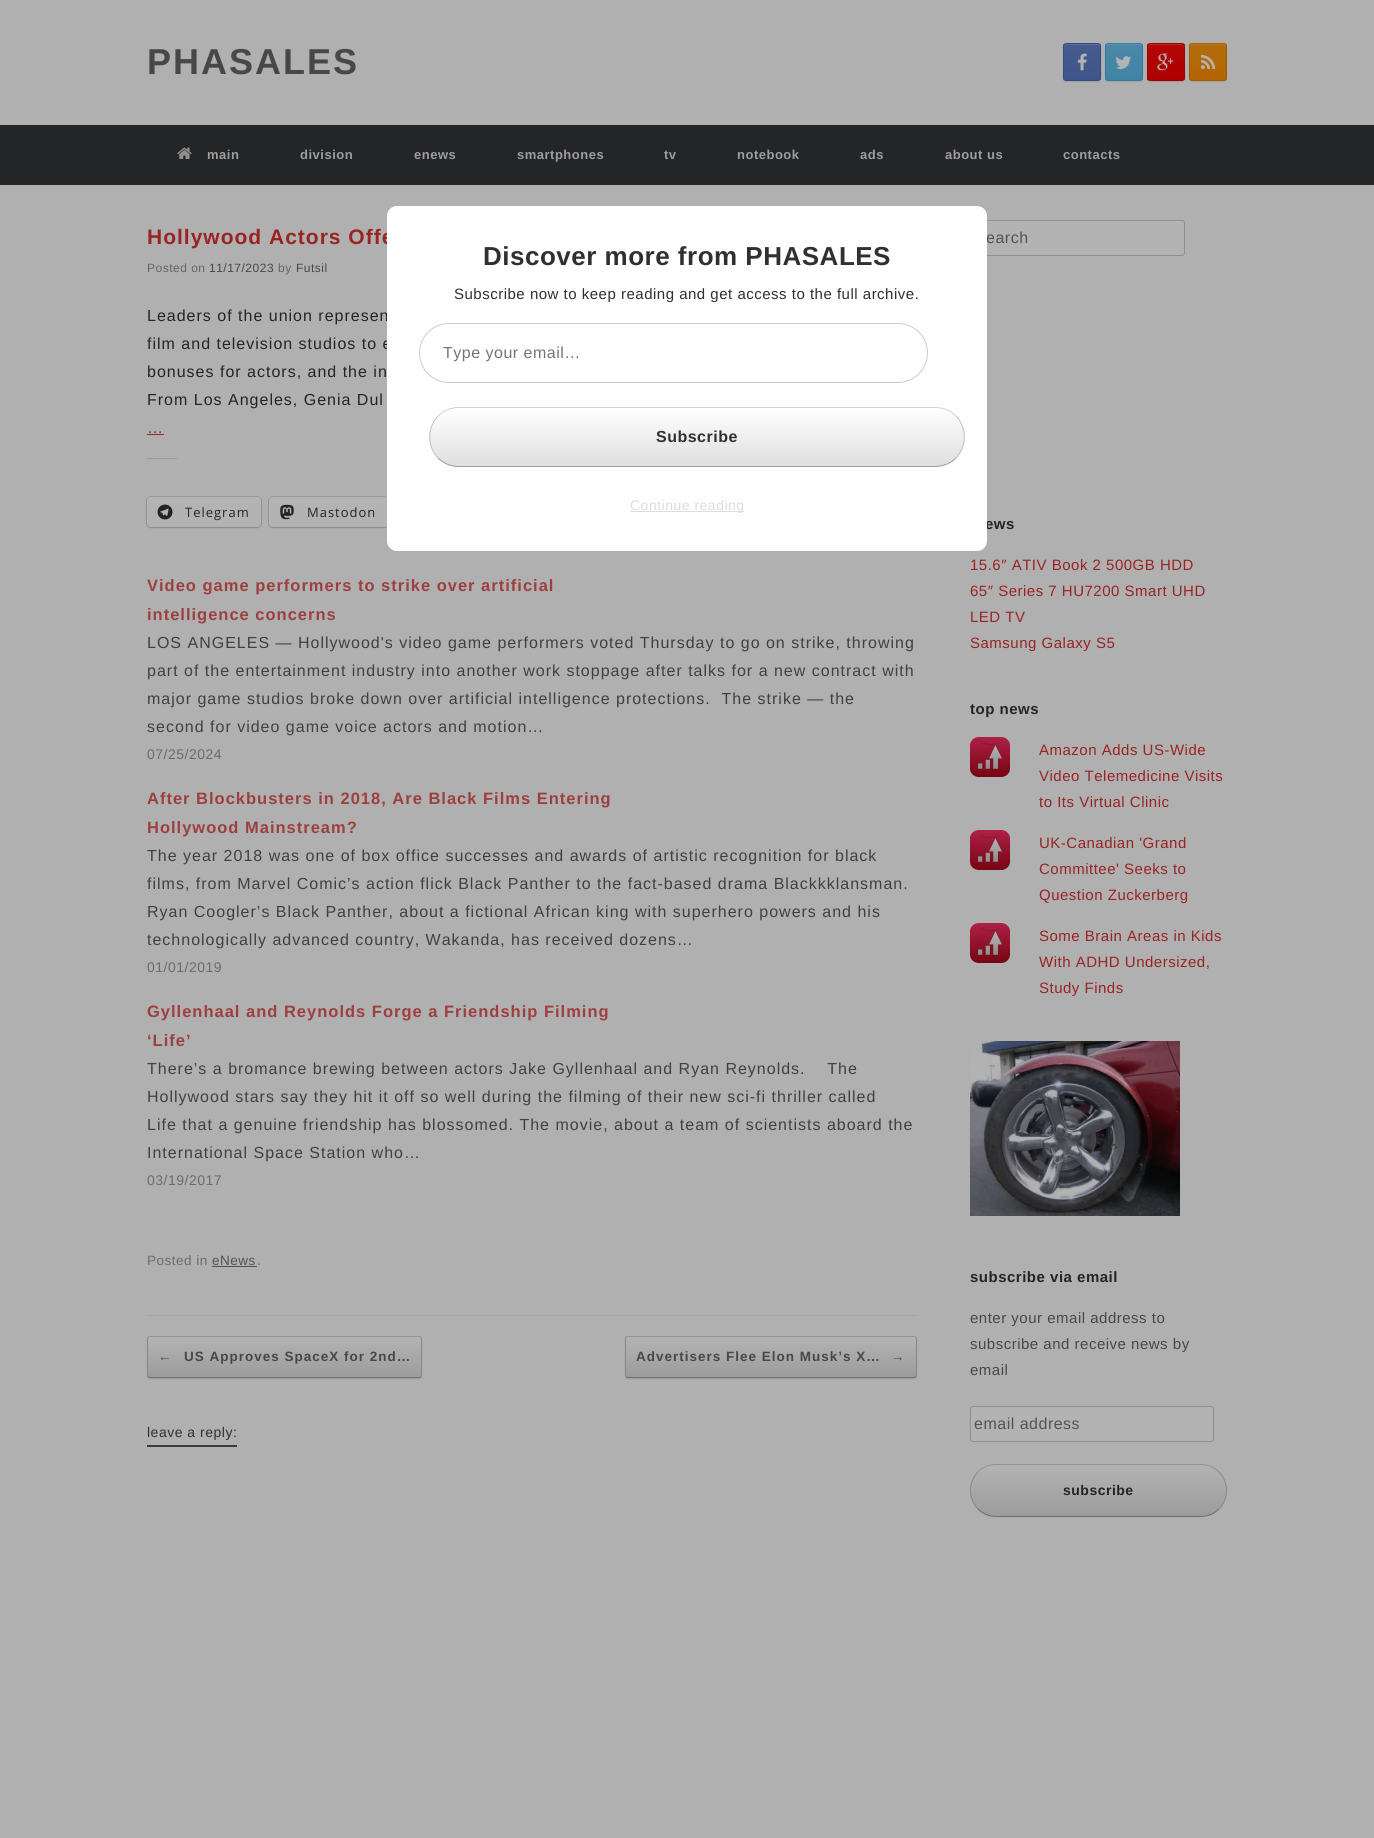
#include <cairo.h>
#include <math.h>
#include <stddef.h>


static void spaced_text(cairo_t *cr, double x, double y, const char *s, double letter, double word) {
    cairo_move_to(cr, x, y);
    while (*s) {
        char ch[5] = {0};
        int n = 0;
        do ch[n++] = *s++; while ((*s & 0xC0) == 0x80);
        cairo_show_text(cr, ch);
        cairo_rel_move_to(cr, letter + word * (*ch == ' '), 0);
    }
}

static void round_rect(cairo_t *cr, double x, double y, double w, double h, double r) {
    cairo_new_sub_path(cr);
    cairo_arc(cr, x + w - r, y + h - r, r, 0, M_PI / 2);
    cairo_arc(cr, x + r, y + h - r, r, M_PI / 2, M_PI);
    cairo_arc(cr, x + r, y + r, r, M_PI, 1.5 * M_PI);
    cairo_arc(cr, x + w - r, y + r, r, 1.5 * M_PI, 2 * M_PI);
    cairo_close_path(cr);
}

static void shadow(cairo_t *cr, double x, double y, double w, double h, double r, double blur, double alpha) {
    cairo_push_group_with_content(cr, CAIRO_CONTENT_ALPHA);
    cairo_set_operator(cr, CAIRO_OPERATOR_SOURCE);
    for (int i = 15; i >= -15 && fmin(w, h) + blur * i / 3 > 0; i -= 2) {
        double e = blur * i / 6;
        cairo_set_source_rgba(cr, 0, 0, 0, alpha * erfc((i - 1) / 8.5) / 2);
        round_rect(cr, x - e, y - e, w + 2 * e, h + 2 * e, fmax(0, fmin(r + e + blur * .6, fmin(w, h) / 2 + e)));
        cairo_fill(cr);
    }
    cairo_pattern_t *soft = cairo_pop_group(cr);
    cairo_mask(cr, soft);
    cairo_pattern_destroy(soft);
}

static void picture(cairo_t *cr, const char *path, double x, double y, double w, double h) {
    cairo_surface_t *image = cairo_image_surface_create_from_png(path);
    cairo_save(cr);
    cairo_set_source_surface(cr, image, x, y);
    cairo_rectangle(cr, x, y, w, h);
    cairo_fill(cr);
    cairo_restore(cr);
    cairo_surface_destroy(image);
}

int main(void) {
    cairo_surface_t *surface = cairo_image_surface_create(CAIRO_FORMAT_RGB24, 1374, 1838);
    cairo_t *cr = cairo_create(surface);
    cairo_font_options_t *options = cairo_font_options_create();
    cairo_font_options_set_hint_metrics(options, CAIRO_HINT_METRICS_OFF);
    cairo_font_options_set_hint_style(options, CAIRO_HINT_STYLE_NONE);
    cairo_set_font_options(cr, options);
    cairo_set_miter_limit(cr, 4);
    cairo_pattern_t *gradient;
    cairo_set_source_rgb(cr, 0.69, 0.69, 0.69);
    cairo_paint(cr);
    cairo_select_font_face(cr, "Liberation Sans", CAIRO_FONT_SLANT_NORMAL, CAIRO_FONT_WEIGHT_BOLD);
    cairo_set_font_size(cr, 36);
    cairo_set_source_rgb(cr, 0.278, 0.278, 0.278);
    spaced_text(cr, 147, 74, "PHASALES", 2, 0);
    cairo_set_source_rgb(cr, 0, 0, 0);
    shadow(cr, 1063, 44, 38, 38, 3, 0.5, 0.1);
    cairo_save(cr);
    round_rect(cr, 1063, 43, 38, 38, 3);
    cairo_clip(cr);
    gradient = cairo_pattern_create_linear(1064, 80, 1064, 44);
    cairo_pattern_add_color_stop_rgba(gradient, 0, 0.243, 0.333, 0.545, 1);
    cairo_pattern_add_color_stop_rgba(gradient, 1, 0.275, 0.361, 0.557, 1);
    cairo_set_source(cr, gradient);
    cairo_pattern_destroy(gradient);
    cairo_rectangle(cr, 1063, 44, 38, 36);
    cairo_fill(cr);
    cairo_restore(cr);
    cairo_set_source_rgb(cr, 0.361, 0.427, 0.584);
    cairo_new_path(cr);
    cairo_move_to(cr, 1066, 45);
    cairo_line_to(cr, 1098, 45);
    cairo_curve_to(cr, 1099, 45, 1100, 46, 1100, 47);
    cairo_curve_to(cr, 1100, 42.5, 1096.5, 44, 1092.5, 44);
    cairo_line_to(cr, 1071.5, 44);
    cairo_curve_to(cr, 1067.5, 44, 1064, 42.5, 1064, 47);
    cairo_curve_to(cr, 1064, 46, 1065, 45, 1066, 45);
    cairo_close_path(cr);
    cairo_fill(cr);
    round_rect(cr, 1063.5, 43.5, 37, 37, 2.5);
    cairo_set_source_rgb(cr, 0.192, 0.294, 0.529);
    cairo_set_line_width(cr, 1);
    cairo_stroke(cr);
    picture(cr, "img1.png", 1077, 53, 10, 18);
    cairo_set_source_rgb(cr, 0, 0, 0);
    shadow(cr, 1105, 44, 38, 38, 3, 0.5, 0.1);
    cairo_save(cr);
    round_rect(cr, 1105, 43, 38, 38, 3);
    cairo_clip(cr);
    gradient = cairo_pattern_create_linear(1106, 80, 1106, 44);
    cairo_pattern_add_color_stop_rgba(gradient, 0, 0.251, 0.518, 0.647, 1);
    cairo_pattern_add_color_stop_rgba(gradient, 1, 0.29, 0.533, 0.655, 1);
    cairo_set_source(cr, gradient);
    cairo_pattern_destroy(gradient);
    cairo_rectangle(cr, 1105, 44, 38, 36);
    cairo_fill(cr);
    cairo_restore(cr);
    cairo_set_source_rgb(cr, 0.388, 0.573, 0.663);
    cairo_new_path(cr);
    cairo_move_to(cr, 1108, 45);
    cairo_line_to(cr, 1140, 45);
    cairo_curve_to(cr, 1141, 45, 1142, 46, 1142, 47);
    cairo_curve_to(cr, 1142, 42.5, 1138.5, 44, 1134.5, 44);
    cairo_line_to(cr, 1113.5, 44);
    cairo_curve_to(cr, 1109.5, 44, 1106, 42.5, 1106, 47);
    cairo_curve_to(cr, 1106, 46, 1107, 45, 1108, 45);
    cairo_close_path(cr);
    cairo_fill(cr);
    round_rect(cr, 1105.5, 43.5, 37, 37, 2.5);
    cairo_set_source_rgb(cr, 0.188, 0.49, 0.639);
    cairo_stroke(cr);
    picture(cr, "img2.png", 1115, 56, 17, 13);
    cairo_set_source_rgb(cr, 0, 0, 0);
    shadow(cr, 1147, 44, 38, 38, 3, 0.5, 0.1);
    cairo_save(cr);
    round_rect(cr, 1147, 43, 38, 38, 3);
    cairo_clip(cr);
    gradient = cairo_pattern_create_linear(1148, 80, 1148, 44);
    cairo_pattern_add_color_stop_rgba(gradient, 0, 0.682, 0, 0, 1);
    cairo_pattern_add_color_stop_rgba(gradient, 1, 0.702, 0.024, 0.024, 1);
    cairo_set_source(cr, gradient);
    cairo_pattern_destroy(gradient);
    cairo_rectangle(cr, 1147, 44, 38, 36);
    cairo_fill(cr);
    cairo_restore(cr);
    cairo_set_source_rgb(cr, 0.702, 0.157, 0.157);
    cairo_new_path(cr);
    cairo_move_to(cr, 1150, 45);
    cairo_line_to(cr, 1182, 45);
    cairo_curve_to(cr, 1183, 45, 1184, 46, 1184, 47);
    cairo_curve_to(cr, 1184, 42.5, 1180.5, 44, 1176.5, 44);
    cairo_line_to(cr, 1155.5, 44);
    cairo_curve_to(cr, 1151.5, 44, 1148, 42.5, 1148, 47);
    cairo_curve_to(cr, 1148, 46, 1149, 45, 1150, 45);
    cairo_close_path(cr);
    cairo_fill(cr);
    round_rect(cr, 1147.5, 43.5, 37, 37, 2.5);
    cairo_set_source_rgb(cr, 0.612, 0, 0);
    cairo_stroke(cr);
    picture(cr, "img3.png", 1157, 53, 17, 18);
    cairo_set_source_rgb(cr, 0, 0, 0);
    shadow(cr, 1189, 44, 38, 38, 3, 0.5, 0.1);
    cairo_save(cr);
    round_rect(cr, 1189, 43, 38, 38, 3);
    cairo_clip(cr);
    gradient = cairo_pattern_create_linear(1190, 80, 1190, 44);
    cairo_pattern_add_color_stop_rgba(gradient, 0, 0.702, 0.4, 0, 1);
    cairo_pattern_add_color_stop_rgba(gradient, 1, 0.702, 0.42, 0.043, 1);
    cairo_set_source(cr, gradient);
    cairo_pattern_destroy(gradient);
    cairo_rectangle(cr, 1189, 44, 38, 36);
    cairo_fill(cr);
    cairo_restore(cr);
    cairo_set_source_rgb(cr, 0.702, 0.475, 0.173);
    cairo_new_path(cr);
    cairo_move_to(cr, 1192, 45);
    cairo_line_to(cr, 1224, 45);
    cairo_curve_to(cr, 1225, 45, 1226, 46, 1226, 47);
    cairo_curve_to(cr, 1226, 42.5, 1222.5, 44, 1218.5, 44);
    cairo_line_to(cr, 1197.5, 44);
    cairo_curve_to(cr, 1193.5, 44, 1190, 42.5, 1190, 47);
    cairo_curve_to(cr, 1190, 46, 1191, 45, 1192, 45);
    cairo_close_path(cr);
    cairo_fill(cr);
    round_rect(cr, 1189.5, 43.5, 37, 37, 2.5);
    cairo_set_source_rgb(cr, 0.631, 0.361, 0);
    cairo_stroke(cr);
    picture(cr, "img4.png", 1201, 54, 15, 15);
    cairo_set_source_rgb(cr, 0.141, 0.145, 0.153);
    cairo_rectangle(cr, 0, 125, 1374, 60);
    cairo_fill(cr);
    picture(cr, "img5.png", 177, 147, 15, 12);
    cairo_set_font_size(cr, 13);
    cairo_set_source_rgb(cr, 0.62, 0.62, 0.62);
    spaced_text(cr, 207, 159, "main", 0.5, 0);
    spaced_text(cr, 300, 159, "division", 0.5, 0);
    spaced_text(cr, 414, 159, "enews", 0.5, 0);
    spaced_text(cr, 517, 159, "smartphones", 0.5, 0);
    spaced_text(cr, 664, 159, "tv", 0.5, 0);
    spaced_text(cr, 737, 159, "notebook", 0.5, 0);
    spaced_text(cr, 860, 159, "ads", 0.5, 0);
    spaced_text(cr, 945, 159, "about us", 0.5, 0);
    spaced_text(cr, 1063, 159, "contacts", 0.5, 0);
    cairo_set_source_rgb(cr, 0.655, 0.655, 0.655);
    cairo_rectangle(cr, 147, 1315, 770, 1);
    cairo_fill(cr);
    cairo_set_font_size(cr, 21);
    cairo_set_source_rgb(cr, 0.604, 0.137, 0.137);
    spaced_text(cr, 147, 244, "Hollywood Actors Offe", 1, 0);
    cairo_select_font_face(cr, "Liberation Sans", CAIRO_FONT_SLANT_NORMAL, CAIRO_FONT_WEIGHT_NORMAL);
    cairo_set_font_size(cr, 12);
    cairo_set_source_rgb(cr, 0.392, 0.392, 0.392);
    spaced_text(cr, 147, 272, "Posted on", 0.5, 0);
    cairo_set_source_rgb(cr, 0.278, 0.278, 0.278);
    spaced_text(cr, 209, 272, "11/17/2023", 0.5, 0);
    cairo_set_source_rgb(cr, 0.392, 0.392, 0.392);
    spaced_text(cr, 278, 272, "by", 0.5, 0);
    cairo_set_source_rgb(cr, 0.278, 0.278, 0.278);
    spaced_text(cr, 296, 272, "Futsil", 0.5, 0);
    cairo_set_font_size(cr, 16);
    cairo_set_source_rgb(cr, 0.141, 0.141, 0.141);
    spaced_text(cr, 147, 321, "Leaders of the union represen", 1, 0);
    spaced_text(cr, 147, 349, "film and television studios to e", 1, 0);
    spaced_text(cr, 147, 377, "bonuses for actors, and the in", 1, 0);
    spaced_text(cr, 147, 405, "From Los Angeles, Genia Dul", 1, 0);
    cairo_set_source_rgb(cr, 0.604, 0.137, 0.137);
    spaced_text(cr, 147, 433, "…", 1, 0);
    cairo_rectangle(cr, 147, 434, 17, 1);
    cairo_fill(cr);
    cairo_set_source_rgb(cr, 0.604, 0.604, 0.608);
    cairo_rectangle(cr, 147, 458, 30, 1);
    cairo_fill(cr);
    round_rect(cr, 146.5, 496.5, 115, 31, 4.5);
    cairo_set_source_rgb(cr, 0.608, 0.608, 0.608);
    cairo_stroke(cr);
    cairo_set_source_rgb(cr, 0, 0, 0);
    shadow(cr, 147, 498, 114, 30, 4, 1, 0.12);
    cairo_set_source_rgb(cr, 0.702, 0.702, 0.702);
    round_rect(cr, 147, 497, 114, 30, 4);
    cairo_fill(cr);
    picture(cr, "img6.png", 157, 504, 16, 16);
    cairo_select_font_face(cr, "Open Sans", CAIRO_FONT_SLANT_NORMAL, CAIRO_FONT_WEIGHT_NORMAL);
    cairo_set_font_size(cr, 13);
    cairo_set_source_rgb(cr, 0.141, 0.141, 0.141);
    spaced_text(cr, 185, 517, "Telegram", 1, 0);
    round_rect(cr, 268.5, 496.5, 120, 31, 4.5);
    cairo_set_source_rgb(cr, 0.608, 0.608, 0.608);
    cairo_stroke(cr);
    cairo_set_source_rgb(cr, 0, 0, 0);
    shadow(cr, 269, 498, 119, 30, 4, 1, 0.12);
    cairo_set_source_rgb(cr, 0.702, 0.702, 0.702);
    round_rect(cr, 269, 497, 119, 30, 4);
    cairo_fill(cr);
    picture(cr, "img7.png", 280, 504, 14, 16);
    cairo_set_source_rgb(cr, 0.141, 0.141, 0.141);
    spaced_text(cr, 307, 517, "Mastodon", 1, 0);
    cairo_select_font_face(cr, "Liberation Sans", CAIRO_FONT_SLANT_NORMAL, CAIRO_FONT_WEIGHT_BOLD);
    cairo_set_font_size(cr, 16.5);
    cairo_set_source_rgb(cr, 0.62, 0.247, 0.247);
    spaced_text(cr, 147, 591, "Video game performers to strike over artificial", 1, 0);
    spaced_text(cr, 147, 620, "intelligence concerns", 1, 0);
    cairo_select_font_face(cr, "Liberation Sans", CAIRO_FONT_SLANT_NORMAL, CAIRO_FONT_WEIGHT_NORMAL);
    cairo_set_font_size(cr, 16);
    cairo_set_source_rgb(cr, 0.251, 0.251, 0.251);
    spaced_text(cr, 147, 648, "LOS ANGELES — Hollywood's video game performers voted Thursday to go on strike, throwing", 1, 0);
    spaced_text(cr, 147, 676, "part of the entertainment industry into another work stoppage after talks for a new contract with", 1, 0);
    spaced_text(cr, 147, 704, "major game studios broke down over artificial intelligence protections.  The strike — the", 1, 0);
    spaced_text(cr, 147, 732, "second for video game voice actors and motion…", 1, 0);
    cairo_set_font_size(cr, 14);
    cairo_set_source_rgb(cr, 0.42, 0.42, 0.42);
    spaced_text(cr, 147, 759, "07/25/2024", 0.5, 0);
    cairo_select_font_face(cr, "Liberation Sans", CAIRO_FONT_SLANT_NORMAL, CAIRO_FONT_WEIGHT_BOLD);
    cairo_set_font_size(cr, 16.5);
    cairo_set_source_rgb(cr, 0.62, 0.247, 0.247);
    spaced_text(cr, 147, 804, "After Blockbusters in 2018, Are Black Films Entering", 1, 0);
    spaced_text(cr, 147, 833, "Hollywood Mainstream?", 1, 0);
    cairo_select_font_face(cr, "Liberation Sans", CAIRO_FONT_SLANT_NORMAL, CAIRO_FONT_WEIGHT_NORMAL);
    cairo_set_font_size(cr, 16);
    cairo_set_source_rgb(cr, 0.251, 0.251, 0.251);
    spaced_text(cr, 147, 861, "The year 2018 was one of box office successes and awards of artistic recognition for black", 1, 0);
    spaced_text(cr, 147, 889, "films, from Marvel Comic’s action flick Black Panther to the fact-based drama Blackkklansman.", 1, 0);
    spaced_text(cr, 147, 917, "Ryan Coogler’s Black Panther, about a fictional African king with superhero powers and his", 1, 0);
    spaced_text(cr, 147, 945, "technologically advanced country, Wakanda, has received dozens…", 1, 0);
    cairo_set_font_size(cr, 14);
    cairo_set_source_rgb(cr, 0.42, 0.42, 0.42);
    spaced_text(cr, 147, 972, "01/01/2019", 0.5, 0);
    cairo_select_font_face(cr, "Liberation Sans", CAIRO_FONT_SLANT_NORMAL, CAIRO_FONT_WEIGHT_BOLD);
    cairo_set_font_size(cr, 16.5);
    cairo_set_source_rgb(cr, 0.62, 0.247, 0.247);
    spaced_text(cr, 147, 1017, "Gyllenhaal and Reynolds Forge a Friendship Filming", 1, 0);
    spaced_text(cr, 147, 1046, "‘Life’", 1, 0);
    cairo_select_font_face(cr, "Liberation Sans", CAIRO_FONT_SLANT_NORMAL, CAIRO_FONT_WEIGHT_NORMAL);
    cairo_set_font_size(cr, 16);
    cairo_set_source_rgb(cr, 0.251, 0.251, 0.251);
    spaced_text(cr, 147, 1074, "There’s a bromance brewing between actors Jake Gyllenhaal and Ryan Reynolds.    The", 1, 0);
    spaced_text(cr, 147, 1102, "Hollywood stars say they hit it off so well during the filming of their new sci-fi thriller called", 1, 0);
    spaced_text(cr, 147, 1130, "Life that a genuine friendship has blossomed. The movie, about a team of scientists aboard the", 1, 0);
    spaced_text(cr, 147, 1158, "International Space Station who…", 1, 0);
    cairo_set_font_size(cr, 14);
    cairo_set_source_rgb(cr, 0.42, 0.42, 0.42);
    spaced_text(cr, 147, 1185, "03/19/2017", 0.5, 0);
    cairo_set_font_size(cr, 13.5);
    spaced_text(cr, 147, 1265, "Posted in", 0.5, 0);
    cairo_set_source_rgb(cr, 0.325, 0.325, 0.325);
    spaced_text(cr, 212, 1265, "eNews", 0.5, 0);
    cairo_rectangle(cr, 212, 1266, 45, 1);
    cairo_fill(cr);
    cairo_set_source_rgb(cr, 0.42, 0.42, 0.42);
    spaced_text(cr, 257, 1265, ".", 0.5, 0);
    cairo_set_source_rgb(cr, 0, 0, 0);
    shadow(cr, 147, 1337, 275, 42, 3, 0.5, 0.12);
    cairo_save(cr);
    round_rect(cr, 147, 1336, 275, 42, 3);
    cairo_clip(cr);
    gradient = cairo_pattern_create_linear(148, 1377, 148, 1337);
    cairo_pattern_add_color_stop_rgba(gradient, 0, 0.612, 0.612, 0.612, 1);
    cairo_pattern_add_color_stop_rgba(gradient, 1, 0.702, 0.702, 0.702, 1);
    cairo_set_source(cr, gradient);
    cairo_pattern_destroy(gradient);
    cairo_rectangle(cr, 147, 1337, 275, 40);
    cairo_fill(cr);
    cairo_restore(cr);
    cairo_new_path(cr);
    cairo_move_to(cr, 148, 1337);
    cairo_line_to(cr, 150, 1336.5);
    cairo_line_to(cr, 419, 1336.5);
    cairo_line_to(cr, 421, 1337);
    cairo_set_source_rgb(cr, 0.576, 0.576, 0.576);
    cairo_stroke(cr);
    cairo_new_path(cr);
    cairo_move_to(cr, 421, 1337);
    cairo_line_to(cr, 421.5, 1339);
    cairo_line_to(cr, 421.5, 1375);
    cairo_line_to(cr, 421, 1377);
    cairo_set_source_rgb(cr, 0.537, 0.537, 0.537);
    cairo_stroke(cr);
    cairo_new_path(cr);
    cairo_move_to(cr, 421, 1377);
    cairo_line_to(cr, 419, 1377.5);
    cairo_line_to(cr, 150, 1377.5);
    cairo_line_to(cr, 148, 1377);
    cairo_set_source_rgb(cr, 0.435, 0.435, 0.435);
    cairo_stroke(cr);
    cairo_new_path(cr);
    cairo_move_to(cr, 148, 1377);
    cairo_line_to(cr, 147.5, 1375);
    cairo_line_to(cr, 147.5, 1339);
    cairo_line_to(cr, 148, 1337);
    cairo_set_source_rgb(cr, 0.537, 0.537, 0.537);
    cairo_stroke(cr);
    cairo_select_font_face(cr, "Liberation Sans", CAIRO_FONT_SLANT_NORMAL, CAIRO_FONT_WEIGHT_BOLD);
    cairo_set_source_rgb(cr, 0.278, 0.278, 0.278);
    spaced_text(cr, 158, 1361, "←", 1, 0);
    spaced_text(cr, 184, 1361, "US Approves SpaceX for 2nd…", 1, 0);
    cairo_set_source_rgb(cr, 0, 0, 0);
    shadow(cr, 625, 1337, 292, 42, 3, 0.5, 0.12);
    cairo_save(cr);
    round_rect(cr, 625, 1336, 292, 42, 3);
    cairo_clip(cr);
    gradient = cairo_pattern_create_linear(626, 1377, 626, 1337);
    cairo_pattern_add_color_stop_rgba(gradient, 0, 0.612, 0.612, 0.612, 1);
    cairo_pattern_add_color_stop_rgba(gradient, 1, 0.702, 0.702, 0.702, 1);
    cairo_set_source(cr, gradient);
    cairo_pattern_destroy(gradient);
    cairo_rectangle(cr, 625, 1337, 292, 40);
    cairo_fill(cr);
    cairo_restore(cr);
    cairo_new_path(cr);
    cairo_move_to(cr, 626, 1337);
    cairo_line_to(cr, 628, 1336.5);
    cairo_line_to(cr, 914, 1336.5);
    cairo_line_to(cr, 916, 1337);
    cairo_set_source_rgb(cr, 0.576, 0.576, 0.576);
    cairo_stroke(cr);
    cairo_new_path(cr);
    cairo_move_to(cr, 916, 1337);
    cairo_line_to(cr, 916.5, 1339);
    cairo_line_to(cr, 916.5, 1375);
    cairo_line_to(cr, 916, 1377);
    cairo_set_source_rgb(cr, 0.537, 0.537, 0.537);
    cairo_stroke(cr);
    cairo_new_path(cr);
    cairo_move_to(cr, 916, 1377);
    cairo_line_to(cr, 914, 1377.5);
    cairo_line_to(cr, 628, 1377.5);
    cairo_line_to(cr, 626, 1377);
    cairo_set_source_rgb(cr, 0.435, 0.435, 0.435);
    cairo_stroke(cr);
    cairo_new_path(cr);
    cairo_move_to(cr, 626, 1377);
    cairo_line_to(cr, 625.5, 1375);
    cairo_line_to(cr, 625.5, 1339);
    cairo_line_to(cr, 626, 1337);
    cairo_set_source_rgb(cr, 0.537, 0.537, 0.537);
    cairo_stroke(cr);
    cairo_set_source_rgb(cr, 0.278, 0.278, 0.278);
    spaced_text(cr, 636, 1361, "Advertisers Flee Elon Musk’s X…", 1, 0);
    spaced_text(cr, 891, 1361, "→", 1, 0);
    cairo_set_source_rgb(cr, 0.231, 0.231, 0.231);
    cairo_rectangle(cr, 147, 1445, 90, 2);
    cairo_fill(cr);
    cairo_select_font_face(cr, "Liberation Sans", CAIRO_FONT_SLANT_NORMAL, CAIRO_FONT_WEIGHT_NORMAL);
    cairo_set_font_size(cr, 14);
    cairo_set_source_rgb(cr, 0.188, 0.188, 0.188);
    spaced_text(cr, 147, 1437, "leave a reply:", 0.5, 0);
    cairo_set_source_rgb(cr, 0.702, 0.702, 0.702);
    round_rect(cr, 970.5, 220.5, 214, 35, 2.5);
    cairo_fill_preserve(cr);
    cairo_set_source_rgb(cr, 0.561, 0.561, 0.561);
    cairo_stroke(cr);
    cairo_set_font_size(cr, 16);
    cairo_set_source_rgb(cr, 0.325, 0.325, 0.325);
    spaced_text(cr, 986, 243, "earch", 0.5, 0);
    cairo_select_font_face(cr, "Liberation Sans", CAIRO_FONT_SLANT_NORMAL, CAIRO_FONT_WEIGHT_BOLD);
    cairo_set_font_size(cr, 15);
    cairo_set_source_rgb(cr, 0.141, 0.141, 0.141);
    spaced_text(cr, 985, 529, "ews", 0.5, 0);
    cairo_select_font_face(cr, "Liberation Sans", CAIRO_FONT_SLANT_NORMAL, CAIRO_FONT_WEIGHT_NORMAL);
    cairo_set_source_rgb(cr, 0.604, 0.137, 0.137);
    spaced_text(cr, 970, 570, "15.6″ ATIV Book 2 500GB HDD", 0.5, 0);
    spaced_text(cr, 970, 596, "65″ Series 7 HU7200 Smart UHD", 0.5, 0);
    spaced_text(cr, 970, 622, "LED TV", 0.5, 0);
    spaced_text(cr, 970, 648, "Samsung Galaxy S5", 0.5, 0);
    cairo_select_font_face(cr, "Liberation Sans", CAIRO_FONT_SLANT_NORMAL, CAIRO_FONT_WEIGHT_BOLD);
    cairo_set_source_rgb(cr, 0.141, 0.141, 0.141);
    spaced_text(cr, 970, 714, "top news", 0.5, 0);
    picture(cr, "img8.png", 970, 737, 40, 40);
    cairo_select_font_face(cr, "Liberation Sans", CAIRO_FONT_SLANT_NORMAL, CAIRO_FONT_WEIGHT_NORMAL);
    cairo_set_source_rgb(cr, 0.604, 0.137, 0.137);
    spaced_text(cr, 1039, 755, "Amazon Adds US-Wide", 0.5, 0);
    spaced_text(cr, 1039, 781, "Video Telemedicine Visits", 0.5, 0);
    spaced_text(cr, 1039, 807, "to Its Virtual Clinic", 0.5, 0);
    picture(cr, "img8.png", 970, 830, 40, 40);
    spaced_text(cr, 1039, 848, "UK-Canadian 'Grand", 0.5, 0);
    spaced_text(cr, 1039, 874, "Committee' Seeks to", 0.5, 0);
    spaced_text(cr, 1039, 900, "Question Zuckerberg", 0.5, 0);
    picture(cr, "img8.png", 970, 923, 40, 40);
    spaced_text(cr, 1039, 941, "Some Brain Areas in Kids", 0.5, 0);
    spaced_text(cr, 1039, 967, "With ADHD Undersized,", 0.5, 0);
    spaced_text(cr, 1039, 993, "Study Finds", 0.5, 0);
    picture(cr, "img9.png", 970, 1041, 210, 175);
    cairo_select_font_face(cr, "Liberation Sans", CAIRO_FONT_SLANT_NORMAL, CAIRO_FONT_WEIGHT_BOLD);
    cairo_set_source_rgb(cr, 0.141, 0.141, 0.141);
    spaced_text(cr, 970, 1282, "subscribe via email", 0.5, 0);
    cairo_select_font_face(cr, "Liberation Sans", CAIRO_FONT_SLANT_NORMAL, CAIRO_FONT_WEIGHT_NORMAL);
    cairo_set_source_rgb(cr, 0.278, 0.278, 0.278);
    spaced_text(cr, 970, 1323, "enter your email address to", 0.5, 0);
    spaced_text(cr, 970, 1349, "subscribe and receive news by", 0.5, 0);
    spaced_text(cr, 970, 1375, "email", 0.5, 0);
    cairo_set_source_rgb(cr, 0.702, 0.702, 0.702);
    round_rect(cr, 970.5, 1406.5, 243, 35, 2.5);
    cairo_fill_preserve(cr);
    cairo_set_source_rgb(cr, 0.561, 0.561, 0.561);
    cairo_stroke(cr);
    cairo_set_font_size(cr, 16);
    cairo_set_source_rgb(cr, 0.325, 0.325, 0.325);
    spaced_text(cr, 974, 1429, "email address", 0.5, 0);
    cairo_save(cr);
    round_rect(cr, 970, 1464, 257, 53, 26.5);
    cairo_clip(cr);
    gradient = cairo_pattern_create_linear(971, 1516, 971, 1465);
    cairo_pattern_add_color_stop_rgba(gradient, 0, 0.612, 0.612, 0.612, 1);
    cairo_pattern_add_color_stop_rgba(gradient, 1, 0.702, 0.702, 0.702, 1);
    cairo_set_source(cr, gradient);
    cairo_pattern_destroy(gradient);
    cairo_rectangle(cr, 970, 1465, 257, 51);
    cairo_fill(cr);
    cairo_restore(cr);
    cairo_new_path(cr);
    cairo_move_to(cr, 978, 1472);
    cairo_curve_to(cr, 983, 1467, 989.5, 1464.5, 996.5, 1464.5);
    cairo_line_to(cr, 1200.5, 1464.5);
    cairo_curve_to(cr, 1207.5, 1464.5, 1214, 1467, 1219, 1472);
    cairo_set_source_rgb(cr, 0.576, 0.576, 0.576);
    cairo_stroke(cr);
    cairo_new_path(cr);
    cairo_move_to(cr, 1219, 1472);
    cairo_curve_to(cr, 1229, 1482, 1229, 1499, 1219, 1509);
    cairo_set_source_rgb(cr, 0.537, 0.537, 0.537);
    cairo_stroke(cr);
    cairo_new_path(cr);
    cairo_move_to(cr, 1219, 1509);
    cairo_curve_to(cr, 1214, 1514, 1207.5, 1516.5, 1200.5, 1516.5);
    cairo_line_to(cr, 996.5, 1516.5);
    cairo_curve_to(cr, 989.5, 1516.5, 983, 1514, 978, 1509);
    cairo_set_source_rgb(cr, 0.435, 0.435, 0.435);
    cairo_stroke(cr);
    cairo_new_path(cr);
    cairo_move_to(cr, 978, 1509);
    cairo_curve_to(cr, 968, 1499, 968, 1482, 978, 1472);
    cairo_set_source_rgb(cr, 0.537, 0.537, 0.537);
    cairo_stroke(cr);
    cairo_select_font_face(cr, "Liberation Sans", CAIRO_FONT_SLANT_NORMAL, CAIRO_FONT_WEIGHT_BOLD);
    cairo_set_font_size(cr, 14);
    cairo_set_source_rgb(cr, 0.141, 0.141, 0.141);
    spaced_text(cr, 1063, 1495, "subscribe", 0.5, 0);
    cairo_set_source_rgb(cr, 0.996, 0.996, 0.996);
    round_rect(cr, 387, 206, 600, 345, 10);
    cairo_fill(cr);
    cairo_set_font_size(cr, 26);
    cairo_set_source_rgb(cr, 0.188, 0.188, 0.188);
    spaced_text(cr, 483, 265, "Discover more from PHASALES", 0.5, 0);
    cairo_select_font_face(cr, "Liberation Sans", CAIRO_FONT_SLANT_NORMAL, CAIRO_FONT_WEIGHT_NORMAL);
    cairo_set_font_size(cr, 15);
    spaced_text(cr, 454, 299, "Subscribe now to keep reading and get access to the full archive.", 0.5, 0);
    round_rect(cr, 419.5, 323.5, 508, 59, 29.5);
    cairo_set_source_rgb(cr, 0.8, 0.8, 0.8);
    cairo_stroke(cr);
    cairo_set_font_size(cr, 16);
    cairo_set_source_rgb(cr, 0.459, 0.459, 0.459);
    spaced_text(cr, 443, 358, "Type your email…", 0.5, 0);
    cairo_save(cr);
    round_rect(cr, 429, 407, 536, 60, 30);
    cairo_clip(cr);
    gradient = cairo_pattern_create_linear(430, 466, 430, 408);
    cairo_pattern_add_color_stop_rgba(gradient, 0, 0.875, 0.875, 0.875, 1);
    cairo_pattern_add_color_stop_rgba(gradient, 1, 1, 1, 1, 1);
    cairo_set_source(cr, gradient);
    cairo_pattern_destroy(gradient);
    cairo_rectangle(cr, 429, 408, 536, 58);
    cairo_fill(cr);
    cairo_restore(cr);
    cairo_new_path(cr);
    cairo_move_to(cr, 438, 416);
    cairo_curve_to(cr, 443.5, 410.5, 451, 407.5, 459, 407.5);
    cairo_line_to(cr, 935, 407.5);
    cairo_curve_to(cr, 943, 407.5, 950.5, 410.5, 956, 416);
    cairo_set_source_rgb(cr, 0.824, 0.824, 0.824);
    cairo_stroke(cr);
    cairo_new_path(cr);
    cairo_move_to(cr, 956, 416);
    cairo_curve_to(cr, 967, 427.5, 967, 446.5, 956, 458);
    cairo_set_source_rgb(cr, 0.765, 0.765, 0.765);
    cairo_stroke(cr);
    cairo_new_path(cr);
    cairo_move_to(cr, 956, 458);
    cairo_curve_to(cr, 950.5, 463.5, 943, 466.5, 935, 466.5);
    cairo_line_to(cr, 459, 466.5);
    cairo_curve_to(cr, 451, 466.5, 443.5, 463.5, 438, 458);
    cairo_set_source_rgb(cr, 0.624, 0.624, 0.624);
    cairo_stroke(cr);
    cairo_new_path(cr);
    cairo_move_to(cr, 438, 458);
    cairo_curve_to(cr, 427, 446.5, 427, 427.5, 438, 416);
    cairo_set_source_rgb(cr, 0.765, 0.765, 0.765);
    cairo_stroke(cr);
    cairo_select_font_face(cr, "Liberation Sans", CAIRO_FONT_SLANT_NORMAL, CAIRO_FONT_WEIGHT_BOLD);
    cairo_set_source_rgb(cr, 0.188, 0.188, 0.188);
    spaced_text(cr, 656, 442, "Subscribe", 0.5, 0);
    cairo_set_source_rgb(cr, 0.867, 0.867, 0.867);
    cairo_rectangle(cr, 630, 511, 114, 1);
    cairo_fill(cr);
    cairo_select_font_face(cr, "Liberation Sans", CAIRO_FONT_SLANT_NORMAL, CAIRO_FONT_WEIGHT_NORMAL);
    cairo_set_font_size(cr, 14);
    spaced_text(cr, 630, 510, "Continue reading", 0.5, 0);
    cairo_surface_write_to_png(surface, "page.png");
    cairo_font_options_destroy(options);
    cairo_destroy(cr);
    cairo_surface_destroy(surface);
    return 0;
}
